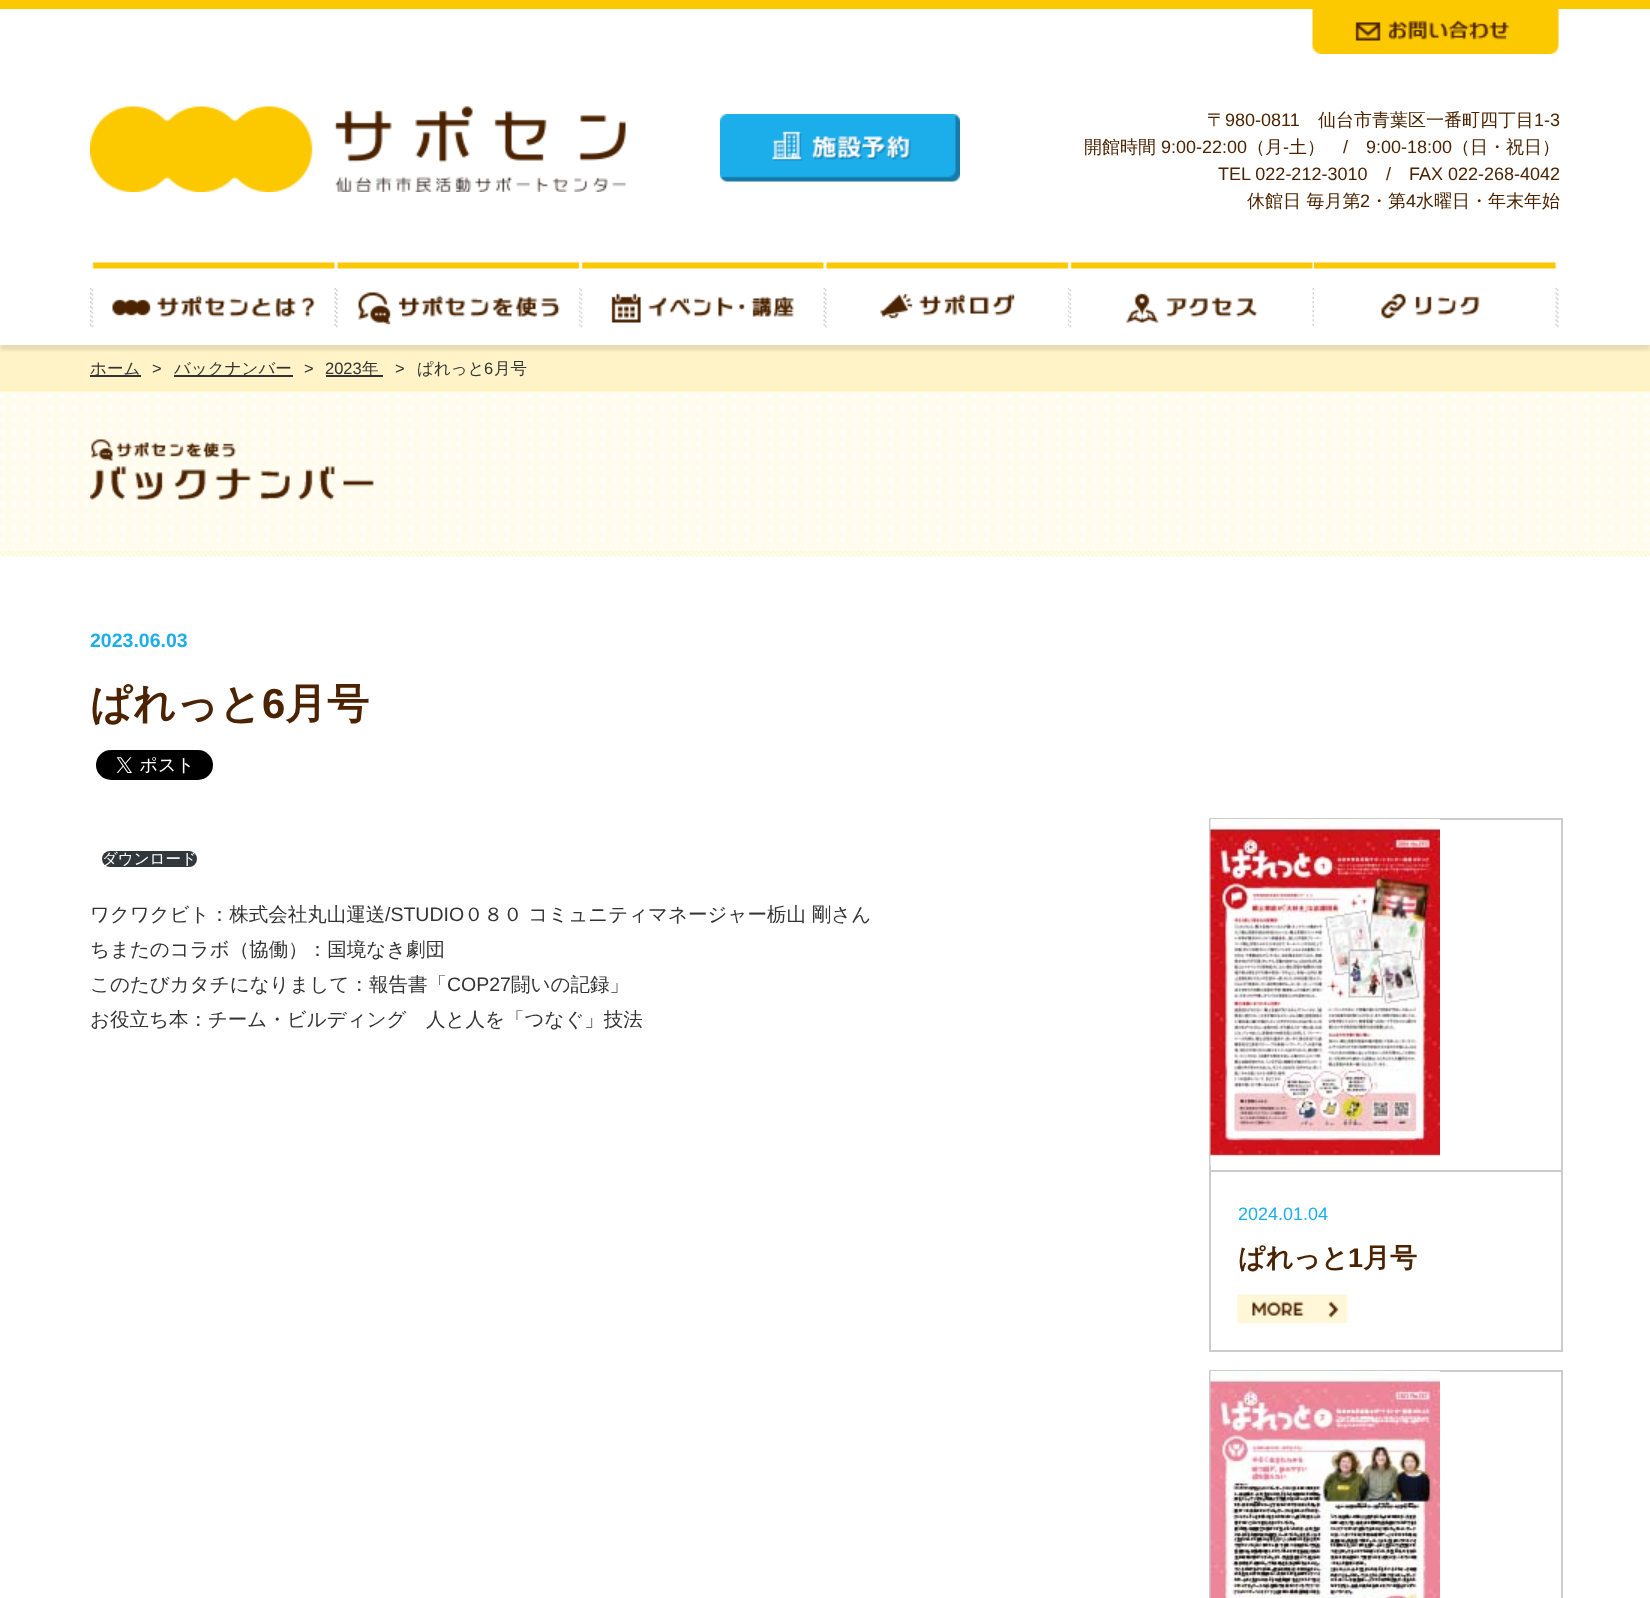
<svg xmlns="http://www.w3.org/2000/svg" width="1650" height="1598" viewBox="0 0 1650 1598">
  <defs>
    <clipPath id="clip1"><path d="M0 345h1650v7H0z"/></clipPath>
  </defs>
  <rect width="100%" height="100%" fill="#fff"/>
  <path d="M0 0h1650v9H0z" fill="#fcc800"/>
  <image x="1312" y="9" width="247" height="45" href="img/1.png"/>
  <image x="90" y="106" width="536" height="86" href="img/2.png"/>
  <image x="720" y="114" width="240" height="68" href="img/3.png"/>
  <path d="M0 345h1650v47H0z" fill="#fff3c7"/>
  <g clip-path="url(#clip1)">
    <path d="M0 267h1650v83H0z" fill="#0000001a" filter="blur(2px)"/>
  </g>
  <image x="90" y="262" width="246" height="66" href="img/4.png"/>
  <image x="336" y="262" width="245" height="66" href="img/5.png"/>
  <image x="580" y="262" width="245" height="66" href="img/6.png"/>
  <image x="825" y="262" width="245" height="66" href="img/7.png"/>
  <image x="1069" y="262" width="245" height="66" href="img/8.png"/>
  <image x="1314" y="262" width="245" height="66" href="img/9.png"/>
  <path d="M90 375h51v2H90z" fill="#333"/>
  <path d="M174 375h119v2H174z" fill="#333"/>
  <path d="M326 375h57v2H326z" fill="#333"/>
  <image x="0" y="550" width="1650" height="7" href="img/12.png"/>
  <path d="M0 387h1650v159H0z" fill="#ffff951a" filter="blur(2px)"/>
  <image x="0" y="391" width="1650" height="160" href="img/10.png"/>
  <image x="90" y="439" width="284" height="61" href="img/11.png"/>
  <image x="96" y="750" width="117" height="30" href="img/13.png"/>
  <rect x="102" y="851" width="95" height="16" rx="8" fill="#32373c"/>
  <path d="M1210 819h352v532H1210z" fill="none" stroke="#ccc" stroke-width="2"/>
  <path d="M1211 1170h351v2H1211z" fill="#ccc"/>
  <image x="1210" y="819" width="230" height="347" href="img/14.png"/>
  <image x="1237" y="1294" width="110" height="29" href="img/15.png"/>
  <path d="M1210 1371h352v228H1210z" fill="none" stroke="#ccc" stroke-width="2"/>
  <image x="1210" y="1371" width="230" height="227" href="img/16.png"/>
  <text x="1207" y="126" font-family="WenQuanYi Zen Hei" font-size="18" font-weight="500" fill="#4b2300">〒</text>
  <text x="1225" y="126" font-family="Liberation Sans" font-size="18" fill="#4b2300">980-0811</text>
  <text x="1318" y="126" font-family="WenQuanYi Zen Hei" font-size="18" font-weight="500" fill="#4b2300">仙台市青葉区一番町四丁目</text>
  <text x="1534" y="126" font-family="Liberation Sans" font-size="18" fill="#4b2300">1-3</text>
  <text x="1084" y="153" font-family="WenQuanYi Zen Hei" font-size="18" font-weight="500" fill="#4b2300">開館時間</text>
  <text x="1161" y="153" font-family="Liberation Sans" font-size="18" fill="#4b2300">9:00-22:00</text>
  <text x="1247" y="153" font-family="WenQuanYi Zen Hei" font-size="18" font-weight="500" fill="#4b2300">（月</text>
  <text x="1283" y="153" font-family="Liberation Sans" font-size="18" fill="#4b2300">-</text>
  <text x="1289" y="153" font-family="WenQuanYi Zen Hei" font-size="18" font-weight="500" fill="#4b2300">土）</text>
  <g font-family="Liberation Sans" font-size="18" fill="#4b2300">
    <text x="1343" y="153">/</text>
    <text x="1366" y="153">9:00-18:00</text>
  </g>
  <text x="1452" y="153" font-family="WenQuanYi Zen Hei" font-size="18" font-weight="500" fill="#4b2300">（日・祝日）</text>
  <g font-family="Liberation Sans" font-size="18" fill="#4b2300">
    <text x="1218" y="180">TEL 022-212-3010</text>
    <text x="1386" y="180">/</text>
    <text x="1409" y="180">FAX 022-268-4042</text>
  </g>
  <text x="1247" y="207" font-family="WenQuanYi Zen Hei" font-size="18" font-weight="500" fill="#4b2300">休館日 毎月第</text>
  <text x="1360" y="207" font-family="Liberation Sans" font-size="18" fill="#4b2300">2</text>
  <text x="1370" y="207" font-family="WenQuanYi Zen Hei" font-size="18" font-weight="500" fill="#4b2300">・第</text>
  <text x="1406" y="207" font-family="Liberation Sans" font-size="18" fill="#4b2300">4</text>
  <text x="1416" y="207" font-family="WenQuanYi Zen Hei" font-size="18" font-weight="500" fill="#4b2300">水曜日・年末年始</text>
  <text x="90" y="374" font-family="WenQuanYi Zen Hei" font-size="16.5" font-weight="500" fill="#333">ホーム</text>
  <text x="152" y="374" font-family="Liberation Sans" font-size="16.5" fill="#333">&gt;</text>
  <text x="174" y="374" font-family="WenQuanYi Zen Hei" font-size="16.5" font-weight="500" fill="#333">バックナンバー</text>
  <g font-family="Liberation Sans" font-size="16.5" fill="#333">
    <text x="304" y="374">&gt;</text>
    <text x="325" y="374">2023</text>
  </g>
  <text x="362" y="374" font-family="WenQuanYi Zen Hei" font-size="16.5" font-weight="500" fill="#333">年</text>
  <text x="395" y="374" font-family="Liberation Sans" font-size="16.5" fill="#333">&gt;</text>
  <text x="417" y="374" font-family="WenQuanYi Zen Hei" font-size="16.5" font-weight="500" fill="#333">ぱれっと</text>
  <text x="484" y="374" font-family="Liberation Sans" font-size="16.5" fill="#333">6</text>
  <text x="494" y="374" font-family="WenQuanYi Zen Hei" font-size="16.5" font-weight="500" fill="#333">月号</text>
  <text x="90" y="647" font-family="Liberation Sans" font-size="19.5" font-weight="bold" fill="#1dadeb">2023.06.03</text>
  <text x="90" y="718" font-family="WenQuanYi Zen Hei" font-size="42" font-weight="bold" fill="#4b2300">ぱれっと</text>
  <text x="262" y="718" font-family="Liberation Sans" font-size="42" font-weight="bold" fill="#4b2300">6</text>
  <text x="285" y="718" font-family="WenQuanYi Zen Hei" font-size="42" font-weight="bold" fill="#4b2300">月号</text>
  <text x="102" y="864" font-family="WenQuanYi Zen Hei" font-size="15.5" font-weight="500" fill="#fff">ダウンロード</text>
  <text x="90" y="921" font-family="WenQuanYi Zen Hei" font-size="19.5" font-weight="500" fill="#333">ワクワクビト：株式会社丸山運送</text>
  <text x="385" y="921" font-family="Liberation Sans" font-size="19.5" fill="#333">/STUDIO</text>
  <g font-family="WenQuanYi Zen Hei" font-size="19.5" font-weight="500" fill="#333">
    <text x="464" y="921">０８０ コミュニティマネージャー栃山 剛さん</text>
    <text x="90" y="956">ちまたのコラボ（協働）：国境なき劇団</text>
    <text x="90" y="991">このたびカタチになりまして：報告書「</text>
  </g>
  <text x="447" y="991" font-family="Liberation Sans" font-size="19.5" fill="#333">COP27</text>
  <g font-family="WenQuanYi Zen Hei" font-size="19.5" font-weight="500" fill="#333">
    <text x="511" y="991">闘いの記録」</text>
    <text x="90" y="1026">お役立ち本：チーム・ビルディング　人と人を「つなぐ」技法</text>
  </g>
  <text x="1238" y="1220" font-family="Liberation Sans" font-size="18" fill="#1dadeb">2024.01.04</text>
  <text x="1238" y="1267" font-family="WenQuanYi Zen Hei" font-size="27" font-weight="bold" fill="#4b2300">ぱれっと</text>
  <text x="1348" y="1267" font-family="Liberation Sans" font-size="27" font-weight="bold" fill="#4b2300">1</text>
  <text x="1363" y="1267" font-family="WenQuanYi Zen Hei" font-size="27" font-weight="bold" fill="#4b2300">月号</text>
</svg>
